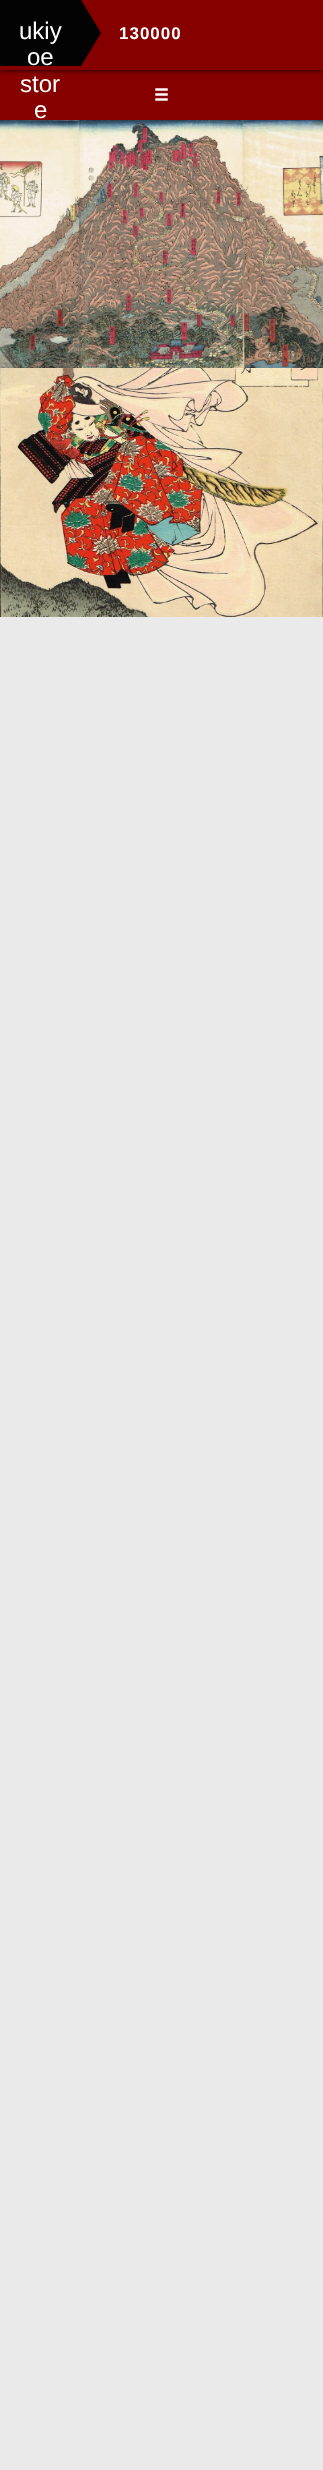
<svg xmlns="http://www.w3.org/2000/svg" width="323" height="2470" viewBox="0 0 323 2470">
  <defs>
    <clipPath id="clip1"><path d="M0 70h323v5H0z"/></clipPath>
  </defs>
  <rect width="100%" height="100%" fill="#eaeaea"/>
  <path d="M0 0h323v120H0z" fill="#870000"/>
  <g clip-path="url(#clip1)">
    <path d="M0 0h323v70H0z" fill="#000" filter="blur(2.5px)"/>
  </g>
  <path d="M0 0h81v66H0z" fill="#030303"/>
  <path d="M81 66V0L101 33Z" fill="#030303"/>
  <image x="155" y="88" width="13" height="13" href="img/1.png"/>
  <image x="0" y="120" width="323" height="248" href="img/2.png"/>
  <image x="0" y="368" width="323" height="249" href="img/3.png"/>
  <g font-family="Liberation Sans" font-size="24" fill="#fff">
    <text x="19" y="39">ukiy</text>
    <text x="27" y="65">oe</text>
    <text x="20" y="92">stor</text>
    <text x="34" y="118">e</text>
  </g>
  <text x="119" y="39" font-family="Liberation Sans" font-size="17" font-weight="bold" letter-spacing="1" fill="#fff">130000</text>
</svg>
